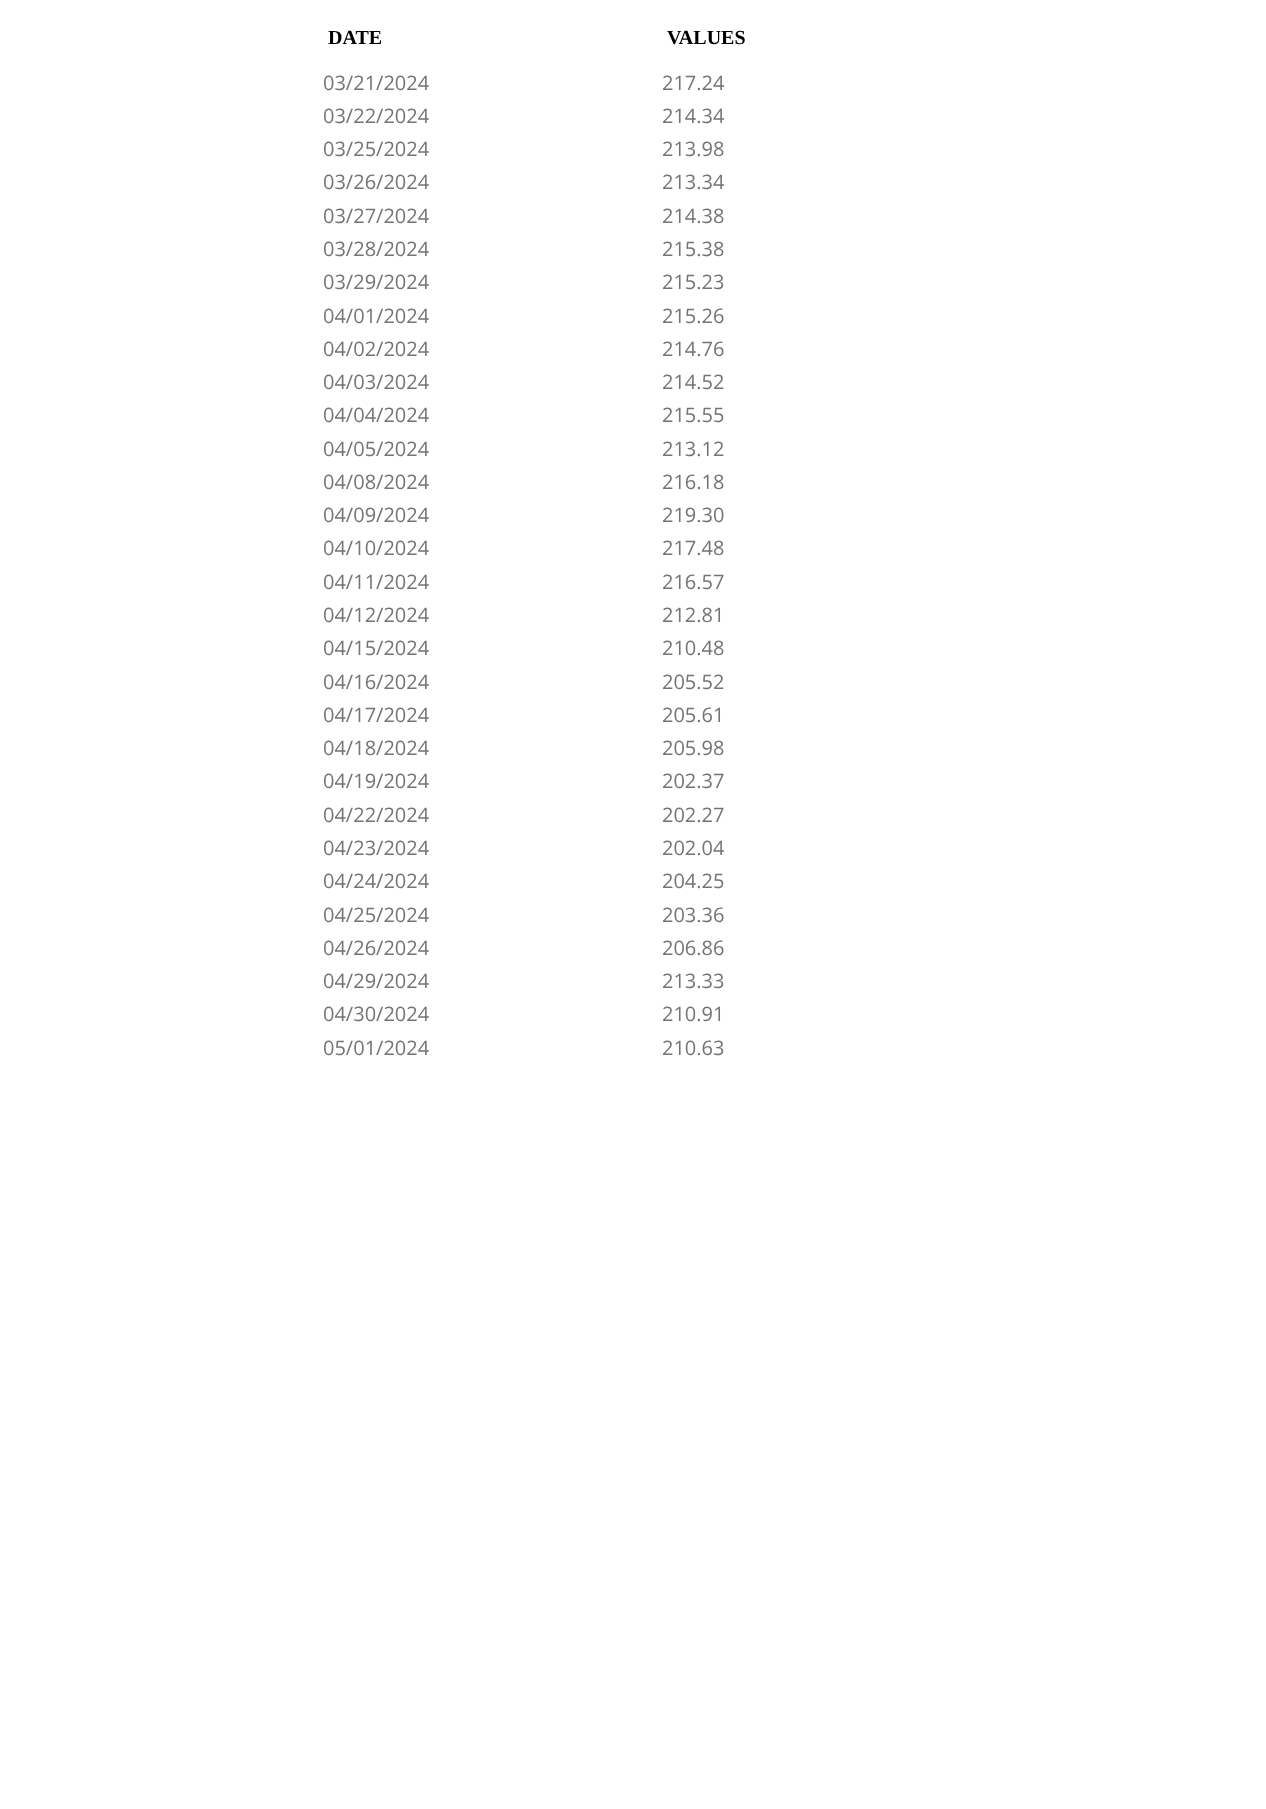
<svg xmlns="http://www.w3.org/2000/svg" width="1266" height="1809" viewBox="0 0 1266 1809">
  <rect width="100%" height="100%" fill="#fff"/>
  <g font-family="Liberation Serif" font-size="20" font-weight="bold" fill="#000">
    <text x="328" y="44">DATE</text>
    <text x="667" y="44">VALUES</text>
  </g>
  <g font-family="Open Sans" font-size="20" fill="#747474">
    <text x="323" y="90">03/21/2024</text>
    <text x="662" y="90">217.24</text>
    <text x="323" y="123">03/22/2024</text>
    <text x="662" y="123">214.34</text>
    <text x="323" y="156">03/25/2024</text>
    <text x="662" y="156">213.98</text>
    <text x="323" y="189">03/26/2024</text>
    <text x="662" y="189">213.34</text>
    <text x="323" y="223">03/27/2024</text>
    <text x="662" y="223">214.38</text>
    <text x="323" y="256">03/28/2024</text>
    <text x="662" y="256">215.38</text>
    <text x="323" y="289">03/29/2024</text>
    <text x="662" y="289">215.23</text>
    <text x="323" y="323">04/01/2024</text>
    <text x="662" y="323">215.26</text>
    <text x="323" y="356">04/02/2024</text>
    <text x="662" y="356">214.76</text>
    <text x="323" y="389">04/03/2024</text>
    <text x="662" y="389">214.52</text>
    <text x="323" y="422">04/04/2024</text>
    <text x="662" y="422">215.55</text>
    <text x="323" y="456">04/05/2024</text>
    <text x="662" y="456">213.12</text>
    <text x="323" y="489">04/08/2024</text>
    <text x="662" y="489">216.18</text>
    <text x="323" y="522">04/09/2024</text>
    <text x="662" y="522">219.30</text>
    <text x="323" y="555">04/10/2024</text>
    <text x="662" y="555">217.48</text>
    <text x="323" y="589">04/11/2024</text>
    <text x="662" y="589">216.57</text>
    <text x="323" y="622">04/12/2024</text>
    <text x="662" y="622">212.81</text>
    <text x="323" y="655">04/15/2024</text>
    <text x="662" y="655">210.48</text>
    <text x="323" y="689">04/16/2024</text>
    <text x="662" y="689">205.52</text>
    <text x="323" y="722">04/17/2024</text>
    <text x="662" y="722">205.61</text>
    <text x="323" y="755">04/18/2024</text>
    <text x="662" y="755">205.98</text>
    <text x="323" y="788">04/19/2024</text>
    <text x="662" y="788">202.37</text>
    <text x="323" y="822">04/22/2024</text>
    <text x="662" y="822">202.27</text>
    <text x="323" y="855">04/23/2024</text>
    <text x="662" y="855">202.04</text>
    <text x="323" y="888">04/24/2024</text>
    <text x="662" y="888">204.25</text>
    <text x="323" y="922">04/25/2024</text>
    <text x="662" y="922">203.36</text>
    <text x="323" y="955">04/26/2024</text>
    <text x="662" y="955">206.86</text>
    <text x="323" y="988">04/29/2024</text>
    <text x="662" y="988">213.33</text>
    <text x="323" y="1021">04/30/2024</text>
    <text x="662" y="1021">210.91</text>
    <text x="323" y="1055">05/01/2024</text>
    <text x="662" y="1055">210.63</text>
  </g>
</svg>
